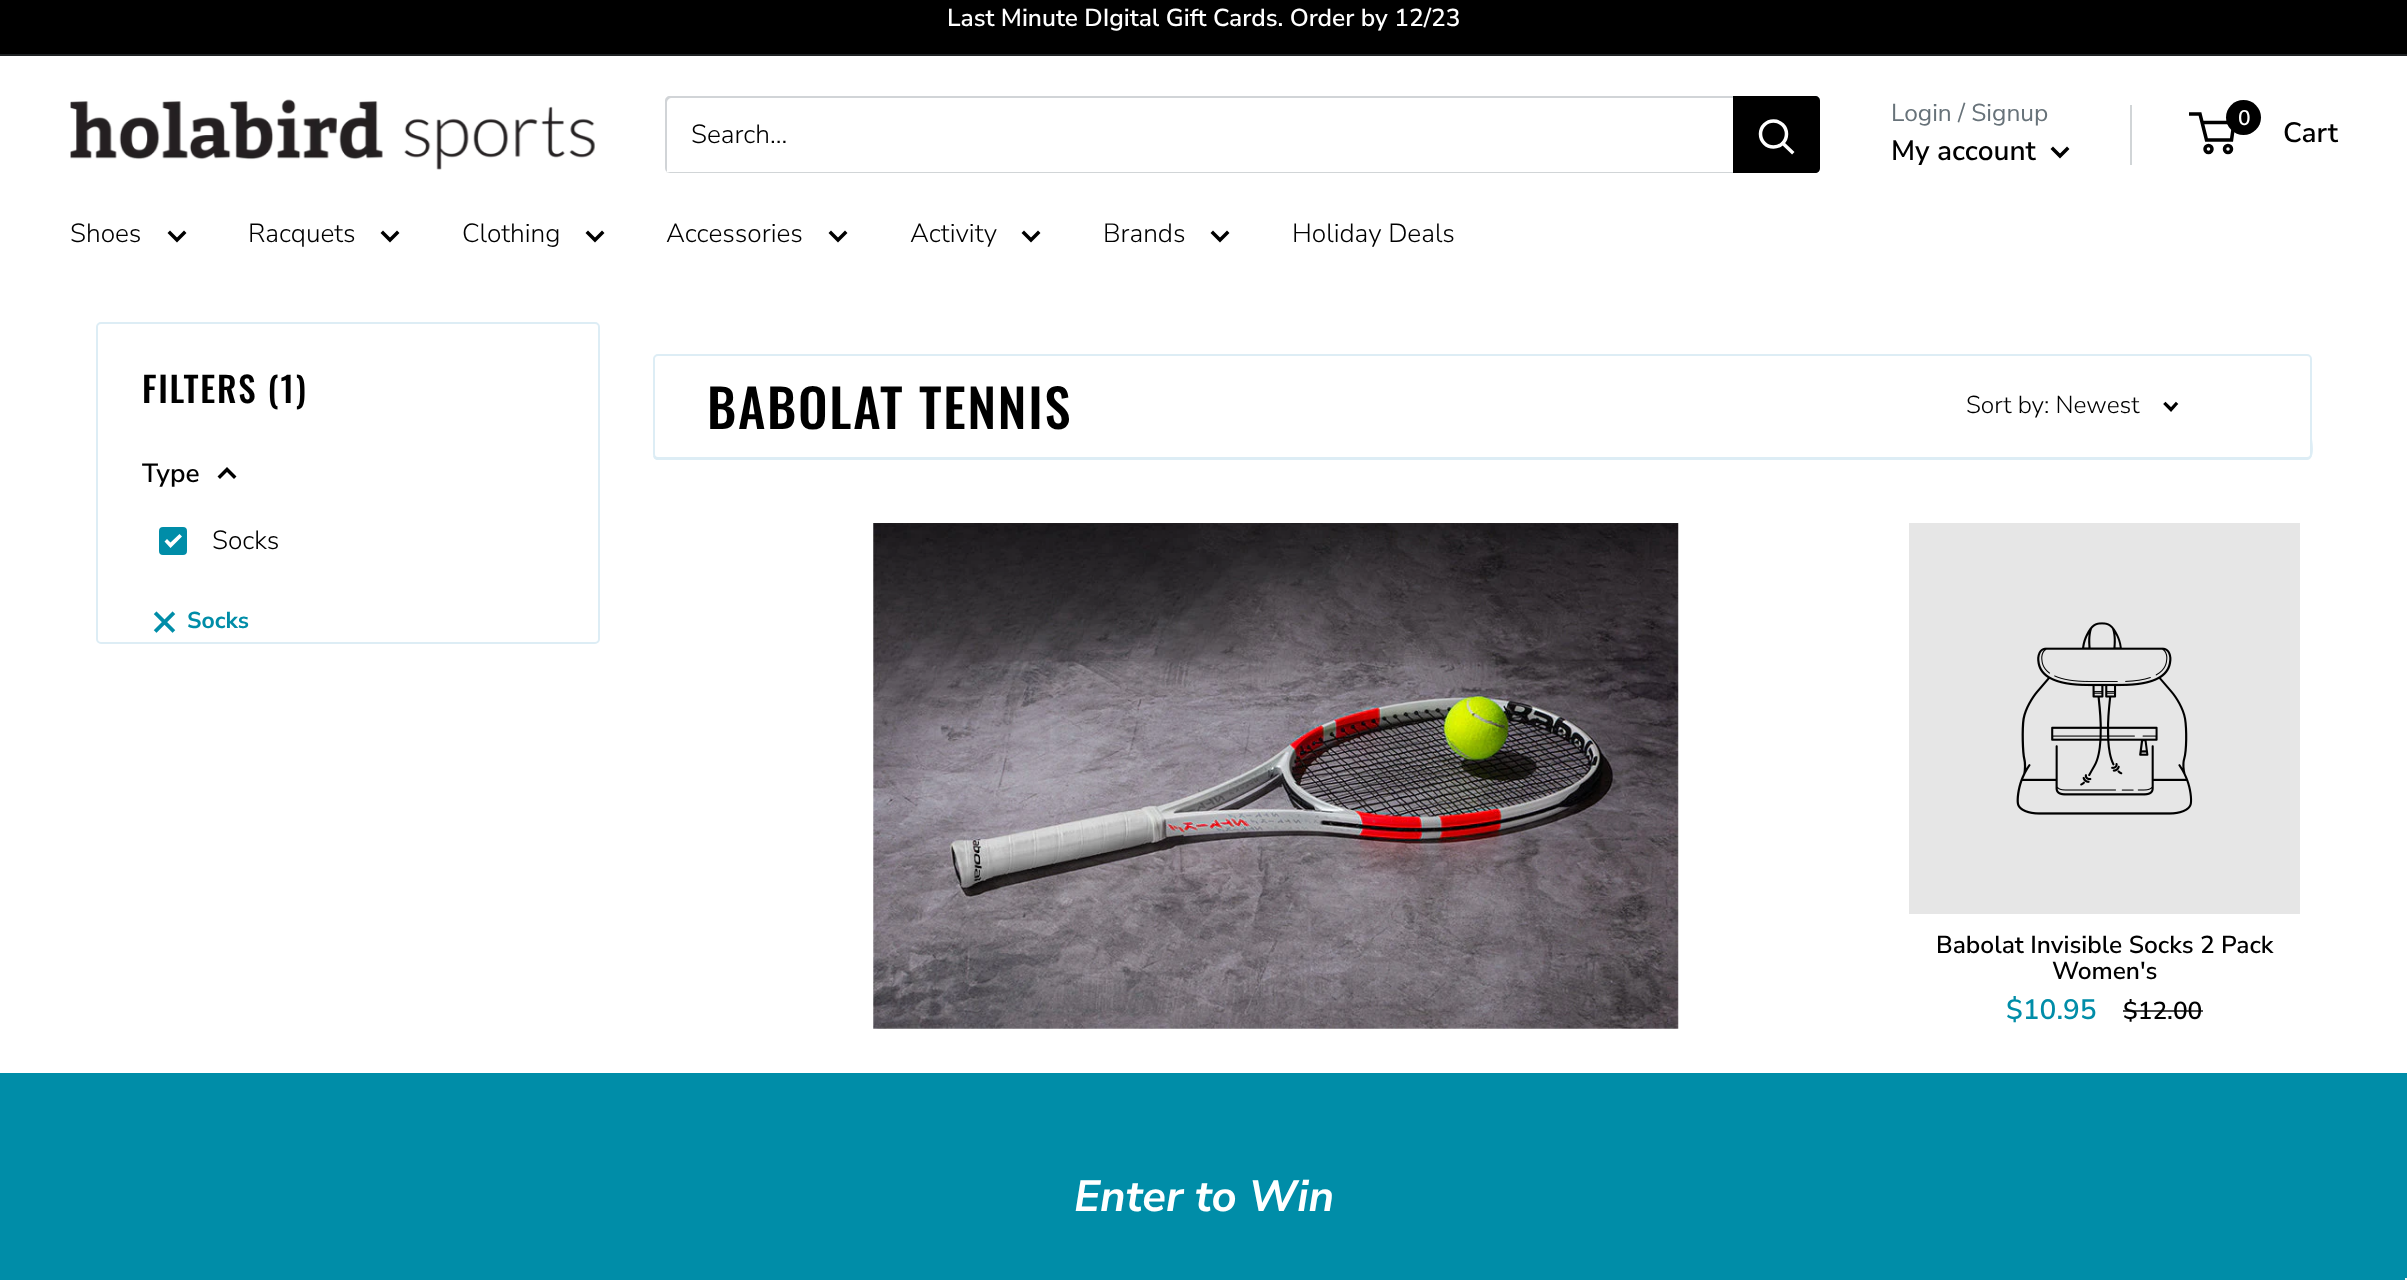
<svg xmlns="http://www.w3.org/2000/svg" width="2407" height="1280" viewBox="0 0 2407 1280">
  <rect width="100%" height="100%" fill="#fff"/>
  <path d="M0 0h2407v54H0z" fill="#000"/>
  <path d="M0 54h2407v2H0z" fill="#1f2224"/>
  <image x="70" y="99" width="525" height="71" href="img/1.png"/>
  <path d="M666 172C667 172 669 173 670 173H1815C1818 173 1820 171 1820 168V101C1820 99 1819 97 1817 96L1818 100V166C1818 169 1816 172 1813 172H668Z" fill="#d1d5d7"/>
  <path d="M672 98H1816L1820 99C1819 97 1817 96 1815 96H670C667 96 665 98 665 101V168C665 170 666 171 667 172V170V103C667 100 669 98 672 98Z" fill="#6772794d"/>
  <path d="M1733 96H1815C1818 96 1820 98 1820 101V168C1820 171 1818 173 1815 173H1733Z" fill="#000"/>
  <path d="M1792 152L1783 143.5" fill="none" stroke="#fff" stroke-width="3.5" stroke-linecap="square"/>
  <circle cx="1773.5" cy="134" r="13" fill="none" stroke="#fff" stroke-width="3.5"/>
  <path d="M2130 105h2v60H2130z" fill="#d1d5d7"/>
  <path d="M2067 149L2060 156L2053 149" fill="none" stroke="#000" stroke-width="3.5" stroke-linecap="square"/>
  <circle cx="2208.5" cy="149" r="3.5" fill="none" stroke="#000" stroke-width="3.5"/>
  <circle cx="2228" cy="149" r="3.5" fill="none" stroke="#000" stroke-width="3.5"/>
  <path d="M2202 122.5H2234L2231.5 140H2206.5L2200 114H2189" fill="none" stroke="#000" stroke-width="3.5"/>
  <circle cx="2243.5" cy="117.5" r="17.5" fill="#000"/>
  <path d="M184 233L177 240L170 233" fill="none" stroke="#000" stroke-width="3.5" stroke-linecap="square"/>
  <path d="M397 233L390 240L383 233" fill="none" stroke="#000" stroke-width="3.5" stroke-linecap="square"/>
  <path d="M602 233L595 240L588 233" fill="none" stroke="#000" stroke-width="3.5" stroke-linecap="square"/>
  <path d="M845 233L838 240L831 233" fill="none" stroke="#000" stroke-width="3.5" stroke-linecap="square"/>
  <path d="M1038 233L1031 240L1024 233" fill="none" stroke="#000" stroke-width="3.5" stroke-linecap="square"/>
  <path d="M1227 233L1220 240L1213 233" fill="none" stroke="#000" stroke-width="3.5" stroke-linecap="square"/>
  <rect x="97" y="323" width="502" height="320" rx="4" fill="none" stroke="#ddedf5" stroke-width="2"/>
  <path d="M220 476.5L227 469.5L234 476.5" fill="none" stroke="#000" stroke-width="3.5" stroke-linecap="square"/>
  <rect x="160" y="528" width="26" height="26" rx="3" fill="#008da8" stroke="#008da8" stroke-width="2"/>
  <path d="M170.5 548L164.5 541.5L167 539L170.5 542.5L179.5 534L182 536.5Z" fill="#fff"/>
  <image x="153" y="611" width="23" height="22" href="img/2.png"/>
  <path d="M653 455C653 458 655 460 658 460H2307C2316 460 2312 440 2312 439V358V453C2312 456 2309 458 2306 458H658C656 458 654 457 653 455Z" fill="#ddedf5"/>
  <rect x="654" y="355" width="1657" height="103" rx="4" fill="#fff" stroke="#ddedf5" stroke-width="2"/>
  <path d="M2176 404L2171 409.5L2165.5 404" fill="none" stroke="#000" stroke-width="3.3" stroke-linecap="square"/>
  <image x="873" y="523" width="806" height="506" href="img/3.png"/>
  <path d="M1909 523h391v391H1909z" fill="#e6e6e6"/>
  <image x="2016" y="622" width="177" height="193" href="img/4.png"/>
  <path d="M0 1073h2407v207H0z" fill="#008da8"/>
  <path d="M2405 1278h2v2H2405z" fill="#f5f5f5"/>
  <text x="947" y="26" font-family="Nunito Sans" font-size="24.5" font-weight="600" fill="#fff">Last Minute DIgital Gift Cards. Order by 12/23</text>
  <text x="691" y="143" font-family="Nunito Sans" font-size="26.25" font-weight="300" fill="#000">Search...</text>
  <text x="1891" y="121" font-family="Nunito Sans" font-size="24.5" fill="#677279">Login / Signup</text>
  <text x="1891" y="160" font-family="Nunito Sans" font-size="28" font-weight="600" fill="#000">My account</text>
  <text x="2238" y="125" font-family="Nunito Sans" font-size="21" font-weight="600" fill="#fff">0</text>
  <text x="2283" y="142" font-family="Nunito Sans" font-size="28" font-weight="600" fill="#000">Cart</text>
  <g font-family="Nunito Sans" font-size="26.25" font-weight="300" fill="#000">
    <text x="70" y="242">Shoes</text>
    <text x="248" y="242">Racquets</text>
    <text x="462" y="242">Clothing</text>
    <text x="666" y="242">Accessories</text>
    <text x="910" y="242">Activity</text>
    <text x="1103" y="242">Brands</text>
    <text x="1292" y="242">Holiday Deals</text>
  </g>
  <text x="142" y="403" font-family="Oswald" font-size="35" font-weight="500" letter-spacing="1.75" fill="#000">FILTERS (1)</text>
  <text x="142" y="482" font-family="Nunito Sans" font-size="26.25" font-weight="600" fill="#000">Type</text>
  <text x="212" y="549" font-family="Nunito Sans" font-size="26.25" font-weight="300" fill="#000">Socks</text>
  <text x="187" y="628" font-family="Nunito Sans" font-size="23" font-weight="bold" fill="#008da8">Socks</text>
  <text x="707" y="429" font-family="Oswald" font-size="52.5" font-weight="500" letter-spacing="1.75" fill="#000">BABOLAT TENNIS</text>
  <text x="1966" y="413" font-family="Nunito Sans" font-size="24.5" font-weight="300" fill="#000">Sort by: Newest</text>
  <g font-family="Nunito Sans" font-size="24.5" font-weight="600" fill="#000">
    <text x="1936" y="953">Babolat Invisible Socks 2 Pack</text>
    <text x="2052" y="979">Women's</text>
  </g>
  <text x="2006" y="1019" font-family="Nunito Sans" font-size="28" font-weight="600" fill="#008da8">$10.95</text>
  <text x="2123" y="1019" font-family="Nunito Sans" font-size="24.5" font-weight="600" fill="#000">$12.00</text>
  <path d="M2123 1010h80v2H2123z" fill="#000000b3"/>
  <text x="1074" y="1211" font-family="Nunito Sans" font-size="43.75" font-weight="bold" font-style="italic" fill="#fff">Enter to Win</text>
</svg>
